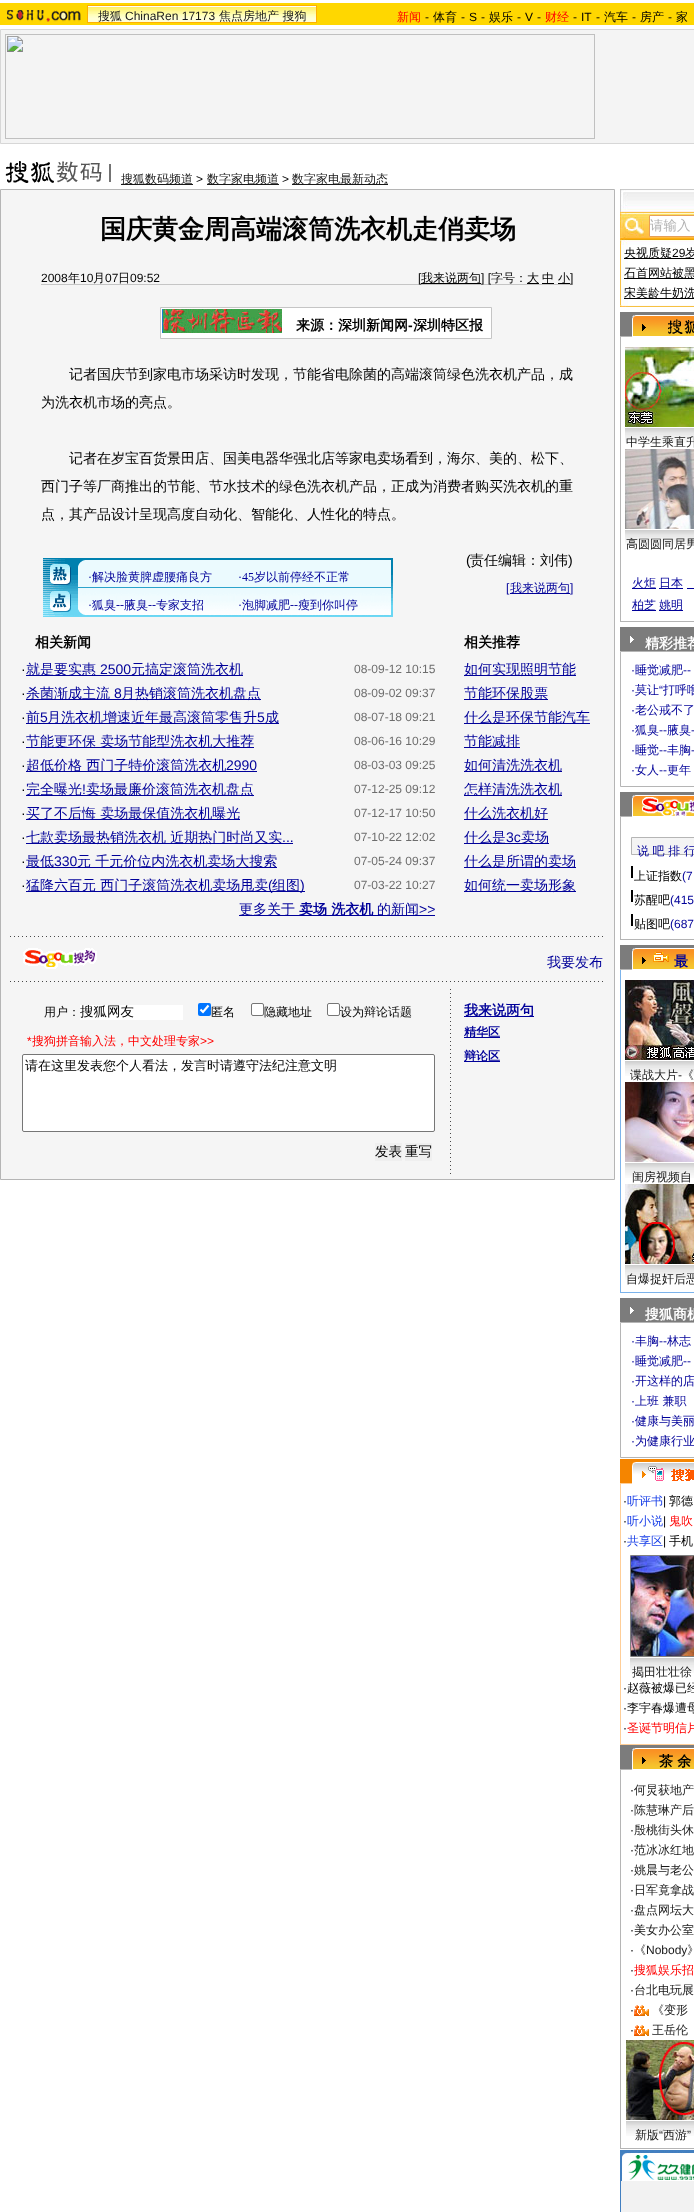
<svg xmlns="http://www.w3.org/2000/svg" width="694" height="2212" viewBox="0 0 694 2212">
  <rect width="100%" height="100%" fill="#fff"/>
  <path d="M0 3h694v22H0z" fill="#ffd700"/>
  <image x="7" y="10" width="74" height="12" href="img/1.png"/>
  <image x="87" y="5" width="230" height="18" href="img/2.png"/>
  <path d="M0.5 29.5h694v114H0.5z" fill="#f4f4f4" stroke="#d7d7d7"/>
  <image x="5" y="34" width="590" height="105" href="img/3.png"/>
  <image x="5" y="161" width="106" height="22" href="img/4.png"/>
  <path d="M121 184h72v1H121z" fill="#191919"/>
  <path d="M207 184h72v1H207z" fill="#191919"/>
  <path d="M292 184h96v1H292z" fill="#191919"/>
  <path d="M0.5 189.5h614v990H0.5z" fill="#f5f5f5" stroke="#b5b5b5"/>
  <path d="M41 284h532v1H41z" fill="#c5c5c5"/>
  <path d="M421 283h60v1H421z" fill="#000"/>
  <path d="M527 283h12v1H527z" fill="#000"/>
  <path d="M542 283h12v1H542z" fill="#000"/>
  <path d="M558 283h12v1H558z" fill="#000"/>
  <path d="M160.5 307.5h331v31H160.5z" fill="#fff" stroke="#c5c5c5"/>
  <image x="162" y="309" width="120" height="24" href="img/5.png"/>
  <image x="43" y="558" width="350" height="59" href="img/6.png"/>
  <path d="M510 593h60v1H510z" fill="#009"/>
  <path d="M26 675h217v1H26z" fill="#009"/>
  <path d="M26 699h235v1H26z" fill="#009"/>
  <path d="M26 723h253v1H26z" fill="#009"/>
  <path d="M26 747h228v1H26z" fill="#009"/>
  <path d="M26 771h231v1H26z" fill="#009"/>
  <path d="M26 795h228v1H26z" fill="#009"/>
  <path d="M26 819h214v1H26z" fill="#009"/>
  <path d="M26 843h267v1H26z" fill="#009"/>
  <path d="M26 867h251v1H26z" fill="#009"/>
  <path d="M26 891h279v1H26z" fill="#009"/>
  <path d="M239 915h196v1H239z" fill="#009"/>
  <path d="M464 675h112v1H464z" fill="#009"/>
  <path d="M464 699h84v1H464z" fill="#009"/>
  <path d="M464 723h126v1H464z" fill="#009"/>
  <path d="M464 747h56v1H464z" fill="#009"/>
  <path d="M464 771h98v1H464z" fill="#009"/>
  <path d="M464 795h98v1H464z" fill="#009"/>
  <path d="M464 819h84v1H464z" fill="#009"/>
  <path d="M464 843h85v1H464z" fill="#009"/>
  <path d="M464 867h112v1H464z" fill="#009"/>
  <path d="M464 891h112v1H464z" fill="#009"/>
  <image x="10" y="936" width="593" height="1" href="img/7.png"/>
  <image x="23" y="948" width="74" height="21" href="img/8.png"/>
  <image x="10" y="981" width="593" height="1" href="img/7.png"/>
  <image x="450" y="989" width="1" height="185" href="img/9.png"/>
  <path d="M80 1005h103v15H80z" fill="#fff"/>
  <rect x="198" y="1003" width="13" height="13" rx="2" fill="#0075ff"/>
  <path d="M200.5 1009.5L203 1012L208.5 1005.5" fill="none" stroke="#fff" stroke-width="2.1"/>
  <rect x="251.5" y="1003.5" width="12" height="12" rx="1.5" fill="#fff" stroke="#767676"/>
  <rect x="327.5" y="1003.5" width="12" height="12" rx="1.5" fill="#fff" stroke="#767676"/>
  <rect x="22.5" y="1054.5" width="412" height="77" rx="1.5" fill="#fff" stroke="#767676"/>
  <path d="M375 1143h27v18H375z" fill="#efefef"/>
  <path d="M405 1143h27v18H405z" fill="#efefef"/>
  <path d="M464 1016h70v1H464z" fill="#009"/>
  <path d="M464 1037h36v1H464z" fill="#009"/>
  <path d="M464 1061h36v1H464z" fill="#009"/>
  <image x="620" y="189" width="74" height="118" href="img/10.png"/>
  <path d="M649.5 215.5h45v21H649.5z" fill="#fff" stroke="#e89f57"/>
  <path d="M624 258h70v1H624z" fill="#000"/>
  <path d="M624 278h70v1H624z" fill="#000"/>
  <path d="M624 298h70v1H624z" fill="#000"/>
  <image x="620" y="312" width="74" height="25" href="img/11.png"/>
  <image x="668" y="319" width="26" height="15" href="img/12.png"/>
  <path d="M620 621h74v1H620z" fill="#b5b5b5"/>
  <path d="M620 337h1v285H620z" fill="#b5b5b5"/>
  <image x="625" y="347" width="69" height="80" href="img/13.png"/>
  <image x="625" y="428" width="69" height="15" href="img/14.png"/>
  <image x="625" y="449" width="69" height="80" href="img/15.png"/>
  <image x="625" y="530" width="69" height="15" href="img/14.png"/>
  <path d="M632 588h24v1H632z" fill="#009"/>
  <path d="M659 588h24v1H659z" fill="#009"/>
  <path d="M687 588h7v1H687z" fill="#009"/>
  <path d="M632 610h24v1H632z" fill="#009"/>
  <path d="M659 610h24v1H659z" fill="#009"/>
  <path d="M620 627h74v24H620z" fill="#7c7c7c"/>
  <image x="630" y="636" width="4" height="7" href="img/16.png"/>
  <path d="M620.5 651.5h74v135H620.5z" fill="none" stroke="#b5b5b5"/>
  <image x="620" y="792" width="74" height="25" href="img/11.png"/>
  <image x="642" y="797" width="52" height="19" href="img/17.png"/>
  <path d="M620 939h74v1H620z" fill="#b5b5b5"/>
  <path d="M620 817h1v123H620z" fill="#b5b5b5"/>
  <path d="M631.5 837.5h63v17H631.5z" fill="#f4f4f4" stroke="#b5b5b5"/>
  <path d="M631 866h2v12H631z" fill="#000"/>
  <path d="M631 890h2v12H631z" fill="#000"/>
  <path d="M631 914h2v12H631z" fill="#000"/>
  <image x="620" y="945" width="74" height="25" href="img/11.png"/>
  <image x="653" y="952" width="16" height="10" href="img/18.png"/>
  <path d="M620 1292h74v1H620z" fill="#7bb3eb"/>
  <path d="M620 970h1v323H620z" fill="#7bb3eb"/>
  <image x="625" y="980" width="69" height="80" href="img/19.png"/>
  <image x="625" y="1061" width="69" height="15" href="img/14.png"/>
  <image x="625" y="1082" width="69" height="80" href="img/20.png"/>
  <image x="625" y="1163" width="69" height="15" href="img/14.png"/>
  <image x="625" y="1184" width="69" height="80" href="img/21.png"/>
  <image x="625" y="1265" width="69" height="15" href="img/14.png"/>
  <path d="M620 1298h74v24H620z" fill="#7c7c7c"/>
  <image x="630" y="1307" width="4" height="7" href="img/16.png"/>
  <path d="M620.5 1322.5h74v135H620.5z" fill="none" stroke="#b5b5b5"/>
  <image x="620" y="1459" width="74" height="25" href="img/22.png"/>
  <path d="M620 1744h74v1H620z" fill="#ffce97"/>
  <path d="M620 1484h1v261H620z" fill="#ffce97"/>
  <path d="M630.5 1555.5h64v101H630.5z" fill="none" stroke="#808080"/>
  <image x="631" y="1556" width="63" height="100" href="img/23.png"/>
  <image x="630" y="1658" width="64" height="15" href="img/24.png"/>
  <image x="620" y="1745" width="74" height="25" href="img/11.png"/>
  <path d="M620 2148h74v1H620z" fill="#b5b5b5"/>
  <path d="M620 1770h1v379H620z" fill="#b5b5b5"/>
  <image x="634" y="2005" width="15" height="11" href="img/25.png"/>
  <image x="634" y="2025" width="15" height="11" href="img/25.png"/>
  <image x="626" y="2040" width="68" height="80" href="img/26.png"/>
  <image x="626" y="2121" width="68" height="15" href="img/27.png"/>
  <image x="620" y="2150" width="74" height="62" href="img/28.png"/>
  <text x="98" y="20" font-family="WenQuanYi Zen Hei" font-size="12" font-weight="500" fill="#191919">搜狐</text>
  <text x="125" y="20" font-family="Liberation Sans" font-size="12" fill="#191919">ChinaRen 17173</text>
  <text x="219" y="20" font-family="WenQuanYi Zen Hei" font-size="12" font-weight="500" fill="#191919">焦点房地产 搜狗</text>
  <text x="397" y="21" font-family="WenQuanYi Zen Hei" font-size="12" font-weight="500" fill="#f00">新闻</text>
  <text x="425" y="21" font-family="Liberation Sans" font-size="12" fill="#000">-</text>
  <text x="433" y="21" font-family="WenQuanYi Zen Hei" font-size="12" font-weight="500" fill="#000">体育</text>
  <g font-family="Liberation Sans" font-size="12" fill="#000">
    <text x="461" y="21">-</text>
    <text x="469" y="21">S</text>
    <text x="481" y="21">-</text>
  </g>
  <text x="489" y="21" font-family="WenQuanYi Zen Hei" font-size="12" font-weight="500" fill="#000">娱乐</text>
  <g font-family="Liberation Sans" font-size="12" fill="#000">
    <text x="517" y="21">-</text>
    <text x="525" y="21">V</text>
    <text x="537" y="21">-</text>
  </g>
  <text x="545" y="21" font-family="WenQuanYi Zen Hei" font-size="12" font-weight="500" fill="#f00">财经</text>
  <g font-family="Liberation Sans" font-size="12" fill="#000">
    <text x="573" y="21">-</text>
    <text x="581" y="21">IT</text>
    <text x="596" y="21">-</text>
  </g>
  <text x="604" y="21" font-family="WenQuanYi Zen Hei" font-size="12" font-weight="500" fill="#000">汽车</text>
  <text x="632" y="21" font-family="Liberation Sans" font-size="12" fill="#000">-</text>
  <text x="640" y="21" font-family="WenQuanYi Zen Hei" font-size="12" font-weight="500" fill="#000">房产</text>
  <text x="668" y="21" font-family="Liberation Sans" font-size="12" fill="#000">-</text>
  <text x="676" y="21" font-family="WenQuanYi Zen Hei" font-size="12" font-weight="500" fill="#000">家</text>
  <text x="121" y="183" font-family="WenQuanYi Zen Hei" font-size="12" font-weight="500" fill="#191919">搜狐数码频道</text>
  <text x="196" y="183" font-family="Liberation Sans" font-size="12" fill="#000">&gt;</text>
  <text x="207" y="183" font-family="WenQuanYi Zen Hei" font-size="12" font-weight="500" fill="#191919">数字家电频道</text>
  <text x="282" y="183" font-family="Liberation Sans" font-size="12" fill="#000">&gt;</text>
  <text x="292" y="183" font-family="WenQuanYi Zen Hei" font-size="12" font-weight="500" fill="#191919">数字家电最新动态</text>
  <text x="100" y="238" font-family="WenQuanYi Zen Hei" font-size="26" font-weight="bold" fill="#000">国庆黄金周高端滚筒洗衣机走俏卖场</text>
  <text x="41" y="282" font-family="Liberation Sans" font-size="12" fill="#000">2008</text>
  <text x="68" y="282" font-family="WenQuanYi Zen Hei" font-size="12" font-weight="500" fill="#000">年</text>
  <text x="80" y="282" font-family="Liberation Sans" font-size="12" fill="#000">10</text>
  <text x="93" y="282" font-family="WenQuanYi Zen Hei" font-size="12" font-weight="500" fill="#000">月</text>
  <text x="105" y="282" font-family="Liberation Sans" font-size="12" fill="#000">07</text>
  <text x="118" y="282" font-family="WenQuanYi Zen Hei" font-size="12" font-weight="500" fill="#000">日</text>
  <g font-family="Liberation Sans" font-size="12" fill="#000">
    <text x="130" y="282">09:52</text>
    <text x="418" y="282">[</text>
  </g>
  <text x="421" y="282" font-family="WenQuanYi Zen Hei" font-size="12" font-weight="500" fill="#000">我来说两句</text>
  <text x="481" y="282" font-family="Liberation Sans" font-size="12" fill="#000">] [</text>
  <g font-family="WenQuanYi Zen Hei" font-size="12" font-weight="500" fill="#000">
    <text x="491" y="282">字号：</text>
    <text x="527" y="282">大</text>
    <text x="542" y="282">中</text>
    <text x="558" y="282">小</text>
  </g>
  <text x="570" y="282" font-family="Liberation Sans" font-size="12" fill="#000">]</text>
  <text x="296" y="330" font-family="WenQuanYi Zen Hei" font-size="14" font-weight="bold" fill="#000">来源：深圳新闻网</text>
  <text x="408" y="330" font-family="Liberation Sans" font-size="14" font-weight="bold" fill="#000">-</text>
  <text x="413" y="330" font-family="WenQuanYi Zen Hei" font-size="14" font-weight="bold" fill="#000">深圳特区报</text>
  <g font-family="WenQuanYi Zen Hei" font-size="14" font-weight="500" fill="#000">
    <text x="69" y="379">记者国庆节到家电市场采访时发现，节能省电除菌的高端滚筒绿色洗衣机产品，成</text>
    <text x="41" y="407">为洗衣机市场的亮点。</text>
    <text x="69" y="463">记者在岁宝百货景田店、国美电器华强北店等家电卖场看到，海尔、美的、松下、</text>
    <text x="41" y="491">西门子等厂商推出的节能、节水技术的绿色洗衣机产品，正成为消费者购买洗衣机的重</text>
    <text x="41" y="519">点，其产品设计呈现高度自动化、智能化、人性化的特点。</text>
  </g>
  <text x="466" y="565" font-family="Liberation Sans" font-size="14" fill="#000">(</text>
  <text x="470" y="565" font-family="WenQuanYi Zen Hei" font-size="14" font-weight="500" fill="#000">责任编辑：刘伟</text>
  <text x="568" y="565" font-family="Liberation Sans" font-size="14" fill="#000">)</text>
  <text x="506" y="592" font-family="Liberation Sans" font-size="12" fill="#009">[</text>
  <text x="510" y="592" font-family="WenQuanYi Zen Hei" font-size="12" font-weight="500" fill="#009">我来说两句</text>
  <text x="570" y="592" font-family="Liberation Sans" font-size="12" fill="#009">]</text>
  <text x="35" y="647" font-family="WenQuanYi Zen Hei" font-size="14" font-weight="bold" fill="#000">相关新闻</text>
  <text x="21" y="674" font-family="Liberation Sans" font-size="14" fill="#000">·</text>
  <text x="26" y="674" font-family="WenQuanYi Zen Hei" font-size="14" font-weight="500" fill="#009">就是要实惠</text>
  <text x="100" y="674" font-family="Liberation Sans" font-size="14" fill="#009">2500</text>
  <text x="131" y="674" font-family="WenQuanYi Zen Hei" font-size="14" font-weight="500" fill="#009">元搞定滚筒洗衣机</text>
  <text x="354" y="673" font-family="Liberation Sans" font-size="12" fill="#6d6d6d">08-09-12 10:15</text>
  <text x="21" y="698" font-family="Liberation Sans" font-size="14" fill="#000">·</text>
  <text x="26" y="698" font-family="WenQuanYi Zen Hei" font-size="14" font-weight="500" fill="#009">杀菌渐成主流</text>
  <text x="114" y="698" font-family="Liberation Sans" font-size="14" fill="#009">8</text>
  <text x="121" y="698" font-family="WenQuanYi Zen Hei" font-size="14" font-weight="500" fill="#009">月热销滚筒洗衣机盘点</text>
  <text x="354" y="697" font-family="Liberation Sans" font-size="12" fill="#6d6d6d">08-09-02 09:37</text>
  <text x="21" y="722" font-family="Liberation Sans" font-size="14" fill="#000">·</text>
  <text x="26" y="722" font-family="WenQuanYi Zen Hei" font-size="14" font-weight="500" fill="#009">前</text>
  <text x="40" y="722" font-family="Liberation Sans" font-size="14" fill="#009">5</text>
  <text x="47" y="722" font-family="WenQuanYi Zen Hei" font-size="14" font-weight="500" fill="#009">月洗衣机增速近年最高滚筒零售升</text>
  <text x="257" y="722" font-family="Liberation Sans" font-size="14" fill="#009">5</text>
  <text x="265" y="722" font-family="WenQuanYi Zen Hei" font-size="14" font-weight="500" fill="#009">成</text>
  <text x="354" y="721" font-family="Liberation Sans" font-size="12" fill="#6d6d6d">08-07-18 09:21</text>
  <text x="21" y="746" font-family="Liberation Sans" font-size="14" fill="#000">·</text>
  <text x="26" y="746" font-family="WenQuanYi Zen Hei" font-size="14" font-weight="500" fill="#009">节能更环保 卖场节能型洗衣机大推荐</text>
  <text x="354" y="745" font-family="Liberation Sans" font-size="12" fill="#6d6d6d">08-06-16 10:29</text>
  <text x="21" y="770" font-family="Liberation Sans" font-size="14" fill="#000">·</text>
  <text x="26" y="770" font-family="WenQuanYi Zen Hei" font-size="14" font-weight="500" fill="#009">超低价格 西门子特价滚筒洗衣机</text>
  <text x="226" y="770" font-family="Liberation Sans" font-size="14" fill="#009">2990</text>
  <text x="354" y="769" font-family="Liberation Sans" font-size="12" fill="#6d6d6d">08-03-03 09:25</text>
  <text x="21" y="794" font-family="Liberation Sans" font-size="14" fill="#000">·</text>
  <text x="26" y="794" font-family="WenQuanYi Zen Hei" font-size="14" font-weight="500" fill="#009">完全曝光</text>
  <text x="82" y="794" font-family="Liberation Sans" font-size="14" fill="#009">!</text>
  <text x="86" y="794" font-family="WenQuanYi Zen Hei" font-size="14" font-weight="500" fill="#009">卖场最廉价滚筒洗衣机盘点</text>
  <text x="354" y="793" font-family="Liberation Sans" font-size="12" fill="#6d6d6d">07-12-25 09:12</text>
  <text x="21" y="818" font-family="Liberation Sans" font-size="14" fill="#000">·</text>
  <text x="26" y="818" font-family="WenQuanYi Zen Hei" font-size="14" font-weight="500" fill="#009">买了不后悔 卖场最保值洗衣机曝光</text>
  <text x="354" y="817" font-family="Liberation Sans" font-size="12" fill="#6d6d6d">07-12-17 10:50</text>
  <text x="21" y="842" font-family="Liberation Sans" font-size="14" fill="#000">·</text>
  <text x="26" y="842" font-family="WenQuanYi Zen Hei" font-size="14" font-weight="500" fill="#009">七款卖场最热销洗衣机 近期热门时尚又实</text>
  <text x="354" y="841" font-family="Liberation Sans" font-size="12" fill="#6d6d6d">07-10-22 12:02</text>
  <text x="282" y="842" font-family="Liberation Sans" font-size="14" fill="#009">...</text>
  <text x="21" y="866" font-family="Liberation Sans" font-size="14" fill="#000">·</text>
  <text x="26" y="866" font-family="WenQuanYi Zen Hei" font-size="14" font-weight="500" fill="#009">最低</text>
  <text x="54" y="866" font-family="Liberation Sans" font-size="14" fill="#009">330</text>
  <text x="77" y="866" font-family="WenQuanYi Zen Hei" font-size="14" font-weight="500" fill="#009">元 千元价位内洗衣机卖场大搜索</text>
  <text x="354" y="865" font-family="Liberation Sans" font-size="12" fill="#6d6d6d">07-05-24 09:37</text>
  <text x="21" y="890" font-family="Liberation Sans" font-size="14" fill="#000">·</text>
  <text x="26" y="890" font-family="WenQuanYi Zen Hei" font-size="14" font-weight="500" fill="#009">猛降六百元 西门子滚筒洗衣机卖场甩卖</text>
  <text x="268" y="890" font-family="Liberation Sans" font-size="14" fill="#009">(</text>
  <text x="272" y="890" font-family="WenQuanYi Zen Hei" font-size="14" font-weight="500" fill="#009">组图</text>
  <text x="300" y="890" font-family="Liberation Sans" font-size="14" fill="#009">)</text>
  <text x="354" y="889" font-family="Liberation Sans" font-size="12" fill="#6d6d6d">07-03-22 10:27</text>
  <text x="239" y="914" font-family="WenQuanYi Zen Hei" font-size="14" font-weight="500" fill="#009">更多关于</text>
  <text x="299" y="914" font-family="WenQuanYi Zen Hei" font-size="14" font-weight="bold" fill="#009">卖场 洗衣机</text>
  <text x="377" y="914" font-family="WenQuanYi Zen Hei" font-size="14" font-weight="500" fill="#009">的新闻</text>
  <text x="419" y="914" font-family="Liberation Sans" font-size="14" fill="#009">&gt;&gt;</text>
  <text x="464" y="647" font-family="WenQuanYi Zen Hei" font-size="14" font-weight="bold" fill="#000">相关推荐</text>
  <g font-family="WenQuanYi Zen Hei" font-size="14" font-weight="500" fill="#009">
    <text x="464" y="674">如何实现照明节能</text>
    <text x="464" y="698">节能环保股票</text>
    <text x="464" y="722">什么是环保节能汽车</text>
    <text x="464" y="746">节能减排</text>
    <text x="464" y="770">如何清洗洗衣机</text>
    <text x="464" y="794">怎样清洗洗衣机</text>
    <text x="464" y="818">什么洗衣机好</text>
    <text x="464" y="842">什么是</text>
  </g>
  <text x="506" y="842" font-family="Liberation Sans" font-size="14" fill="#009">3c</text>
  <g font-family="WenQuanYi Zen Hei" font-size="14" font-weight="500" fill="#009">
    <text x="521" y="842">卖场</text>
    <text x="464" y="866">什么是所谓的卖场</text>
    <text x="464" y="890">如何统一卖场形象</text>
    <text x="547" y="967">我要发布</text>
  </g>
  <text x="44" y="1016" font-family="WenQuanYi Zen Hei" font-size="12" font-weight="500" fill="#000">用户：</text>
  <text x="80" y="1016" font-family="WenQuanYi Zen Hei" font-size="13.5" font-weight="500" fill="#000">搜狐网友</text>
  <g font-family="WenQuanYi Zen Hei" font-size="12" font-weight="500" fill="#000">
    <text x="211" y="1016">匿名</text>
    <text x="264" y="1016">隐藏地址</text>
    <text x="340" y="1016">设为辩论话题</text>
  </g>
  <text x="27" y="1045" font-family="Liberation Sans" font-size="12" fill="#f00">*</text>
  <text x="32" y="1045" font-family="WenQuanYi Zen Hei" font-size="12" font-weight="500" fill="#f00">搜狗拼音输入法，中文处理专家</text>
  <text x="200" y="1045" font-family="Liberation Sans" font-size="12" fill="#f00">&gt;&gt;</text>
  <text x="25" y="1070" font-family="WenQuanYi Zen Hei" font-size="13" font-weight="500" fill="#000">请在这里发表您个人看法，发言时请遵守法纪注意文明</text>
  <g font-family="WenQuanYi Zen Hei" font-size="13.5" font-weight="500" fill="#000">
    <text x="375" y="1156">发表</text>
    <text x="405" y="1156">重写</text>
  </g>
  <text x="464" y="1015" font-family="WenQuanYi Zen Hei" font-size="14" font-weight="bold" fill="#009">我来说两句</text>
  <g font-family="WenQuanYi Zen Hei" font-size="12" font-weight="bold" fill="#009">
    <text x="464" y="1036">精华区</text>
    <text x="464" y="1060">辩论区</text>
  </g>
  <text x="650" y="230" font-family="WenQuanYi Zen Hei" font-size="13.5" font-weight="500" fill="#b3b3b3">请输入</text>
  <text x="624" y="257" font-family="WenQuanYi Zen Hei" font-size="12" font-weight="500" fill="#000">央视质疑</text>
  <text x="672" y="257" font-family="Liberation Sans" font-size="12" fill="#000">29</text>
  <g font-family="WenQuanYi Zen Hei" font-size="12" font-weight="500" fill="#000">
    <text x="685" y="257">岁</text>
    <text x="624" y="277">石首网站被黑</text>
    <text x="624" y="297">宋美龄牛奶洗</text>
  </g>
  <g font-family="WenQuanYi Zen Hei" font-size="12" font-weight="500" fill="#191919">
    <text x="626" y="446">中学生乘直升</text>
    <text x="626" y="548">高圆圆同居男</text>
  </g>
  <g font-family="WenQuanYi Zen Hei" font-size="12" font-weight="500" fill="#009">
    <text x="632" y="587">火炬</text>
    <text x="659" y="587">日本</text>
    <text x="632" y="609">柏芝</text>
    <text x="659" y="609">姚明</text>
  </g>
  <text x="645" y="648" font-family="WenQuanYi Zen Hei" font-size="14" font-weight="bold" fill="#fff">精彩推荐</text>
  <text x="631" y="674" font-family="Liberation Sans" font-size="12" fill="#009">·</text>
  <text x="635" y="674" font-family="WenQuanYi Zen Hei" font-size="12" font-weight="500" fill="#009">睡觉减肥</text>
  <text x="683" y="674" font-family="Liberation Sans" font-size="12" fill="#009">--</text>
  <text x="635" y="694" font-family="WenQuanYi Zen Hei" font-size="12" font-weight="500" fill="#009">莫让</text>
  <text x="659" y="694" font-family="Liberation Sans" font-size="12" fill="#009">“</text>
  <text x="663" y="694" font-family="WenQuanYi Zen Hei" font-size="12" font-weight="500" fill="#009">打呼噜</text>
  <g font-family="Liberation Sans" font-size="12" fill="#009">
    <text x="631" y="694">·</text>
    <text x="631" y="714">·</text>
  </g>
  <text x="635" y="714" font-family="WenQuanYi Zen Hei" font-size="12" font-weight="500" fill="#009">老公戒不了</text>
  <text x="631" y="734" font-family="Liberation Sans" font-size="12" fill="#009">·</text>
  <text x="635" y="734" font-family="WenQuanYi Zen Hei" font-size="12" font-weight="500" fill="#009">狐臭</text>
  <text x="659" y="734" font-family="Liberation Sans" font-size="12" fill="#009">--</text>
  <text x="667" y="734" font-family="WenQuanYi Zen Hei" font-size="12" font-weight="500" fill="#009">腋臭</text>
  <g font-family="Liberation Sans" font-size="12" fill="#009">
    <text x="691" y="734">-</text>
    <text x="631" y="754">·</text>
  </g>
  <text x="635" y="754" font-family="WenQuanYi Zen Hei" font-size="12" font-weight="500" fill="#009">睡觉</text>
  <text x="659" y="754" font-family="Liberation Sans" font-size="12" fill="#009">--</text>
  <text x="667" y="754" font-family="WenQuanYi Zen Hei" font-size="12" font-weight="500" fill="#009">丰胸</text>
  <g font-family="Liberation Sans" font-size="12" fill="#009">
    <text x="691" y="754">-</text>
    <text x="631" y="774">·</text>
  </g>
  <text x="635" y="774" font-family="WenQuanYi Zen Hei" font-size="12" font-weight="500" fill="#009">女人</text>
  <text x="659" y="774" font-family="Liberation Sans" font-size="12" fill="#009">--</text>
  <g font-family="WenQuanYi Zen Hei" font-size="12" font-weight="500" fill="#009">
    <text x="667" y="774">更年</text>
    <text x="637" y="855">说 吧 排 行</text>
  </g>
  <text x="634" y="880" font-family="WenQuanYi Zen Hei" font-size="12" font-weight="500" fill="#000">上证指数</text>
  <text x="682" y="880" font-family="Liberation Sans" font-size="12" fill="#009">(7</text>
  <text x="634" y="904" font-family="WenQuanYi Zen Hei" font-size="12" font-weight="500" fill="#000">苏醒吧</text>
  <text x="670" y="904" font-family="Liberation Sans" font-size="12" fill="#009">(415</text>
  <text x="634" y="928" font-family="WenQuanYi Zen Hei" font-size="12" font-weight="500" fill="#000">贴图吧</text>
  <text x="670" y="928" font-family="Liberation Sans" font-size="12" fill="#009">(687</text>
  <text x="674" y="966" font-family="WenQuanYi Zen Hei" font-size="14" font-weight="bold" fill="#009">最</text>
  <text x="630" y="1079" font-family="WenQuanYi Zen Hei" font-size="12" font-weight="500" fill="#191919">谍战大片</text>
  <text x="678" y="1079" font-family="Liberation Sans" font-size="12" fill="#191919">-</text>
  <g font-family="WenQuanYi Zen Hei" font-size="12" font-weight="500" fill="#191919">
    <text x="682" y="1079">《</text>
    <text x="632" y="1181">闺房视频自</text>
    <text x="626" y="1283">自爆捉奸后恶</text>
  </g>
  <text x="645" y="1319" font-family="WenQuanYi Zen Hei" font-size="14" font-weight="bold" fill="#fff">搜狐商机</text>
  <text x="631" y="1345" font-family="Liberation Sans" font-size="12" fill="#009">·</text>
  <text x="635" y="1345" font-family="WenQuanYi Zen Hei" font-size="12" font-weight="500" fill="#009">丰胸</text>
  <text x="659" y="1345" font-family="Liberation Sans" font-size="12" fill="#009">--</text>
  <text x="667" y="1345" font-family="WenQuanYi Zen Hei" font-size="12" font-weight="500" fill="#009">林志</text>
  <text x="631" y="1365" font-family="Liberation Sans" font-size="12" fill="#009">·</text>
  <text x="635" y="1365" font-family="WenQuanYi Zen Hei" font-size="12" font-weight="500" fill="#009">睡觉减肥</text>
  <g font-family="Liberation Sans" font-size="12" fill="#009">
    <text x="683" y="1365">--</text>
    <text x="631" y="1385">·</text>
  </g>
  <text x="635" y="1385" font-family="WenQuanYi Zen Hei" font-size="12" font-weight="500" fill="#009">开这样的店</text>
  <text x="631" y="1405" font-family="Liberation Sans" font-size="12" fill="#009">·</text>
  <text x="635" y="1405" font-family="WenQuanYi Zen Hei" font-size="12" font-weight="500" fill="#009">上班 兼职</text>
  <text x="631" y="1425" font-family="Liberation Sans" font-size="12" fill="#009">·</text>
  <text x="635" y="1425" font-family="WenQuanYi Zen Hei" font-size="12" font-weight="500" fill="#009">健康与美丽</text>
  <text x="631" y="1445" font-family="Liberation Sans" font-size="12" fill="#009">·</text>
  <text x="635" y="1445" font-family="WenQuanYi Zen Hei" font-size="12" font-weight="500" fill="#009">为健康行业</text>
  <text x="623" y="1505" font-family="Liberation Sans" font-size="12" fill="#000">·</text>
  <text x="627" y="1505" font-family="WenQuanYi Zen Hei" font-size="12" font-weight="500" fill="#173ee8">听评书</text>
  <text x="663" y="1505" font-family="Liberation Sans" font-size="12" fill="#000">|</text>
  <text x="669" y="1505" font-family="WenQuanYi Zen Hei" font-size="12" font-weight="500" fill="#000">郭德</text>
  <text x="623" y="1525" font-family="Liberation Sans" font-size="12" fill="#000">·</text>
  <text x="627" y="1525" font-family="WenQuanYi Zen Hei" font-size="12" font-weight="500" fill="#173ee8">听小说</text>
  <text x="663" y="1525" font-family="Liberation Sans" font-size="12" fill="#000">|</text>
  <text x="669" y="1525" font-family="WenQuanYi Zen Hei" font-size="12" font-weight="500" fill="#f00">鬼吹</text>
  <text x="623" y="1545" font-family="Liberation Sans" font-size="12" fill="#000">·</text>
  <text x="627" y="1545" font-family="WenQuanYi Zen Hei" font-size="12" font-weight="500" fill="#173ee8">共享区</text>
  <text x="663" y="1545" font-family="Liberation Sans" font-size="12" fill="#000">|</text>
  <text x="669" y="1545" font-family="WenQuanYi Zen Hei" font-size="12" font-weight="500" fill="#000">手机</text>
  <text x="632" y="1676" font-family="WenQuanYi Zen Hei" font-size="12" font-weight="500" fill="#191919">揭田壮壮徐</text>
  <text x="623" y="1692" font-family="Liberation Sans" font-size="12" fill="#000">·</text>
  <text x="627" y="1692" font-family="WenQuanYi Zen Hei" font-size="12" font-weight="500" fill="#000">赵薇被爆已经</text>
  <text x="623" y="1712" font-family="Liberation Sans" font-size="12" fill="#000">·</text>
  <text x="627" y="1712" font-family="WenQuanYi Zen Hei" font-size="12" font-weight="500" fill="#000">李宇春爆遭母</text>
  <text x="623" y="1732" font-family="Liberation Sans" font-size="12" fill="#000">·</text>
  <text x="627" y="1732" font-family="WenQuanYi Zen Hei" font-size="12" font-weight="500" fill="#f00">圣诞节明信片</text>
  <text x="659" y="1766" font-family="WenQuanYi Zen Hei" font-size="14" font-weight="bold" fill="#000">茶 余</text>
  <text x="630" y="1794" font-family="Liberation Sans" font-size="12" fill="#000">·</text>
  <text x="634" y="1794" font-family="WenQuanYi Zen Hei" font-size="12" font-weight="500" fill="#191919">何炅获地产</text>
  <text x="630" y="1814" font-family="Liberation Sans" font-size="12" fill="#000">·</text>
  <text x="634" y="1814" font-family="WenQuanYi Zen Hei" font-size="12" font-weight="500" fill="#191919">陈慧琳产后</text>
  <text x="630" y="1834" font-family="Liberation Sans" font-size="12" fill="#000">·</text>
  <text x="634" y="1834" font-family="WenQuanYi Zen Hei" font-size="12" font-weight="500" fill="#191919">殷桃街头休</text>
  <text x="630" y="1854" font-family="Liberation Sans" font-size="12" fill="#000">·</text>
  <text x="634" y="1854" font-family="WenQuanYi Zen Hei" font-size="12" font-weight="500" fill="#191919">范冰冰红地</text>
  <text x="630" y="1874" font-family="Liberation Sans" font-size="12" fill="#000">·</text>
  <text x="634" y="1874" font-family="WenQuanYi Zen Hei" font-size="12" font-weight="500" fill="#191919">姚晨与老公</text>
  <text x="630" y="1894" font-family="Liberation Sans" font-size="12" fill="#000">·</text>
  <text x="634" y="1894" font-family="WenQuanYi Zen Hei" font-size="12" font-weight="500" fill="#191919">日军竟拿战</text>
  <text x="630" y="1914" font-family="Liberation Sans" font-size="12" fill="#000">·</text>
  <text x="634" y="1914" font-family="WenQuanYi Zen Hei" font-size="12" font-weight="500" fill="#191919">盘点网坛大</text>
  <text x="630" y="1934" font-family="Liberation Sans" font-size="12" fill="#000">·</text>
  <text x="634" y="1934" font-family="WenQuanYi Zen Hei" font-size="12" font-weight="500" fill="#191919">美女办公室</text>
  <text x="630" y="1954" font-family="Liberation Sans" font-size="12" fill="#000">·</text>
  <text x="634" y="1954" font-family="WenQuanYi Zen Hei" font-size="12" font-weight="500" fill="#191919">《</text>
  <text x="646" y="1954" font-family="Liberation Sans" font-size="12" fill="#191919">Nobody</text>
  <text x="687" y="1954" font-family="WenQuanYi Zen Hei" font-size="12" font-weight="500" fill="#191919">》</text>
  <text x="630" y="1974" font-family="Liberation Sans" font-size="12" fill="#000">·</text>
  <text x="634" y="1974" font-family="WenQuanYi Zen Hei" font-size="12" font-weight="500" fill="#f00">搜狐娱乐招</text>
  <text x="630" y="1994" font-family="Liberation Sans" font-size="12" fill="#000">·</text>
  <text x="634" y="1994" font-family="WenQuanYi Zen Hei" font-size="12" font-weight="500" fill="#191919">台北电玩展</text>
  <text x="630" y="2014" font-family="Liberation Sans" font-size="12" fill="#000">·</text>
  <text x="652" y="2014" font-family="WenQuanYi Zen Hei" font-size="12" font-weight="500" fill="#191919">《变形</text>
  <text x="630" y="2034" font-family="Liberation Sans" font-size="12" fill="#000">·</text>
  <g font-family="WenQuanYi Zen Hei" font-size="12" font-weight="500" fill="#191919">
    <text x="652" y="2034">王岳伦</text>
    <text x="635" y="2139">新版</text>
  </g>
  <text x="659" y="2139" font-family="Liberation Sans" font-size="12" fill="#191919">“</text>
  <text x="663" y="2139" font-family="WenQuanYi Zen Hei" font-size="12" font-weight="500" fill="#191919">西游</text>
  <text x="687" y="2139" font-family="Liberation Sans" font-size="12" fill="#191919">”</text>
</svg>
